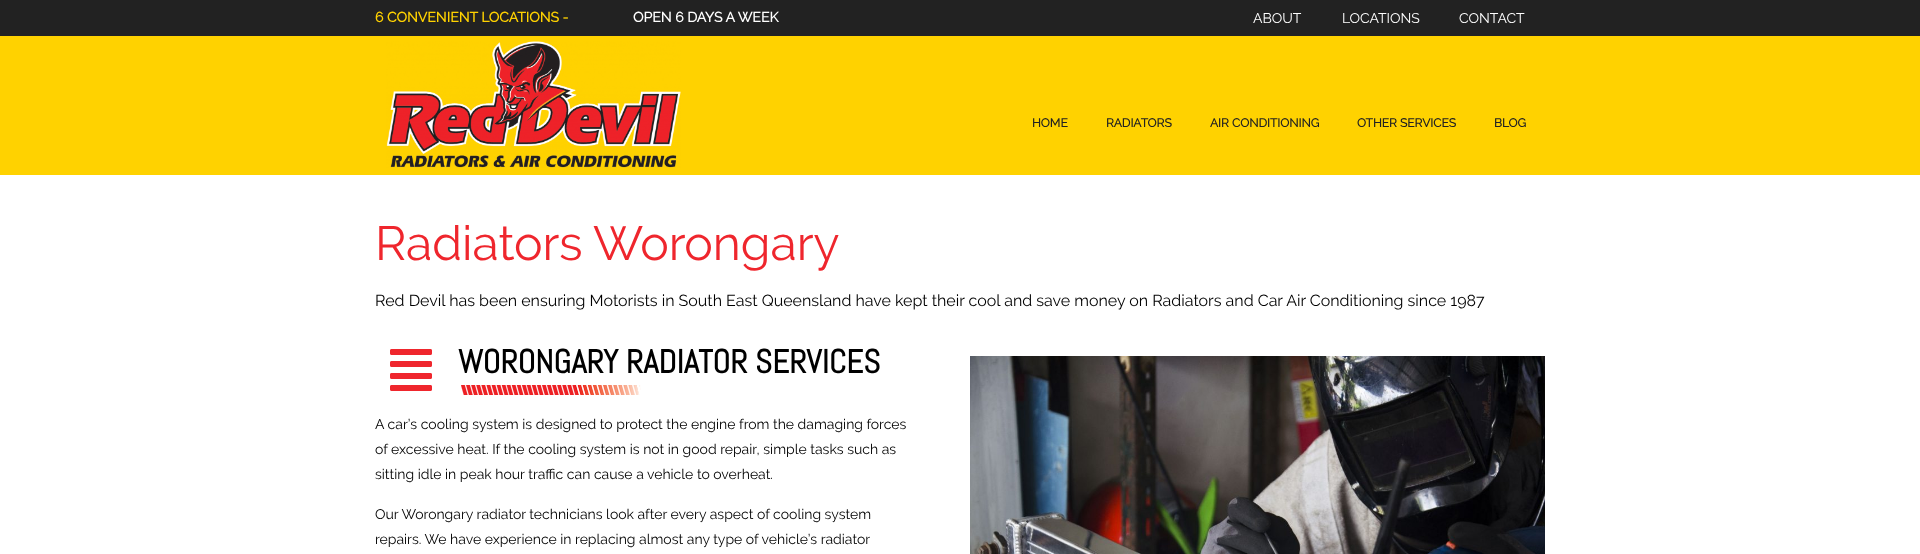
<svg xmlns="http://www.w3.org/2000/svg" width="1920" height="554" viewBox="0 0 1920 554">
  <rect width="100%" height="100%" fill="#fff"/>
  <path d="M0 0h1920v36H0z" fill="#222"/>
  <path d="M0 36h1920v139H0z" fill="#ffd200"/>
  <image x="386" y="41" width="295" height="127" href="img/1.png"/>
  <image x="390" y="349" width="42" height="42" href="img/2.png"/>
  <image x="461" y="385" width="180" height="10" href="img/3.png"/>
  <image x="970" y="356" width="575" height="198" href="img/4.png"/>
  <text x="375" y="22" font-family="Raleway" font-size="14" font-weight="bold" fill="#ffd200">6 CONVENIENT LOCATIONS -</text>
  <text x="633" y="22" font-family="Raleway" font-size="14" font-weight="bold" fill="#fff">OPEN 6 DAYS A WEEK</text>
  <g font-family="Raleway" font-size="14" fill="#fff">
    <text x="1253" y="23">ABOUT</text>
    <text x="1342" y="23">LOCATIONS</text>
    <text x="1459" y="23">CONTACT</text>
  </g>
  <g font-family="Raleway" font-size="12" font-weight="bold" fill="#222">
    <text x="1032" y="127">HOME</text>
    <text x="1106" y="127">RADIATORS</text>
    <text x="1210" y="127">AIR CONDITIONING</text>
    <text x="1357" y="127">OTHER SERVICES</text>
    <text x="1494" y="127">BLOG</text>
  </g>
  <g font-family="Raleway" font-size="48" fill="#ef262d">
    <text x="375" y="260">Radiators</text>
    <text x="593" y="260">Worongary</text>
  </g>
  <text x="375" y="306" font-family="Raleway" font-size="16" fill="#000">Red Devil has been ensuring Motorists in South East Queensland have kept their cool and save money on Radiators and Car Air Conditioning since 1987</text>
  <text x="458" y="373" font-family="Abel" font-size="33" font-weight="bold" fill="#000">WORONGARY RADIATOR SERVICES</text>
  <g font-family="Raleway" font-size="14" fill="#000">
    <text x="375" y="429">A car’s cooling system is designed to protect the engine from the damaging forces</text>
    <text x="375" y="454">of excessive heat. If the cooling system is not in good repair, simple tasks such as</text>
    <text x="375" y="479">sitting idle in peak hour traffic can cause a vehicle to overheat.</text>
    <text x="375" y="519">Our Worongary radiator technicians look after every aspect of cooling system</text>
    <text x="375" y="544">repairs. We have experience in replacing almost any type of vehicle’s radiator</text>
  </g>
</svg>
